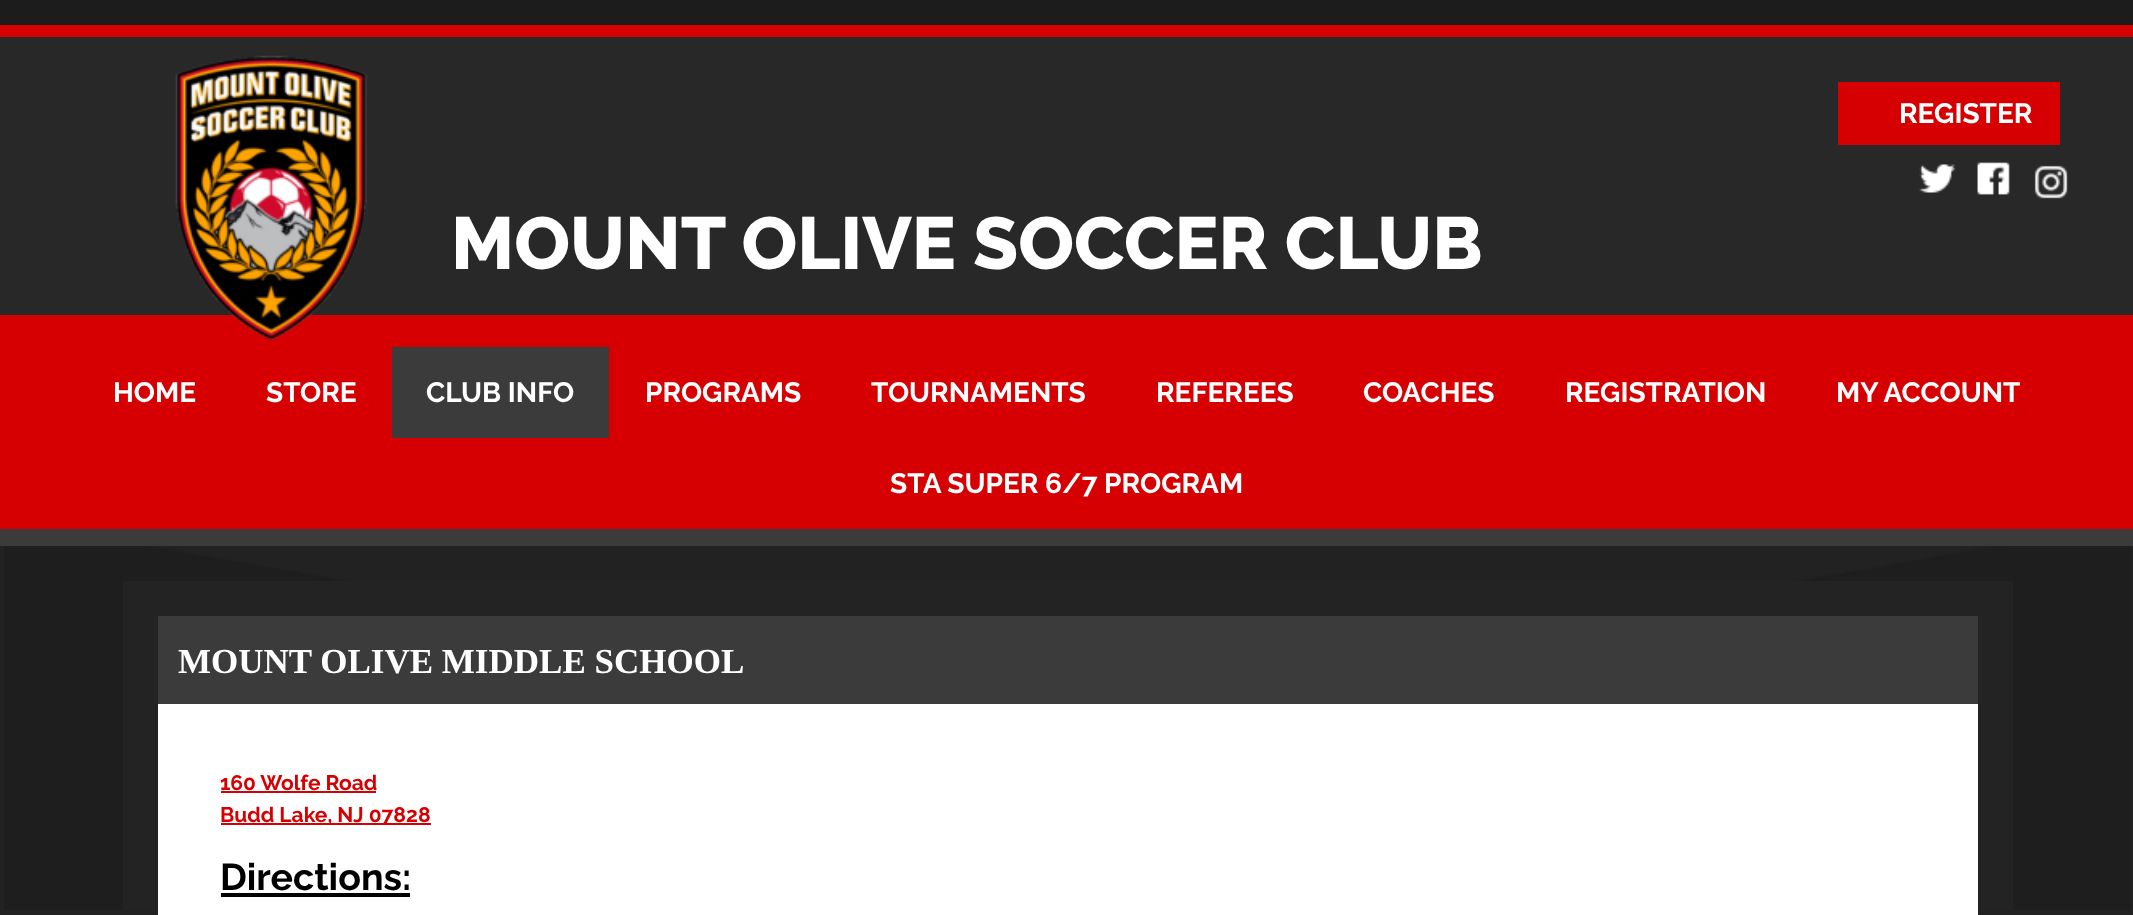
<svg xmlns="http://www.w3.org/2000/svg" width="2133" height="915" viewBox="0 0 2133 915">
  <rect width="100%" height="100%" fill="#222"/>
  <image x="4" y="546" width="2127" height="364" href="img/1.png"/>
  <path d="M0 0h2133v25H0z" fill="#1c1c1c"/>
  <path d="M0 25h2133v12H0z" fill="#d60002"/>
  <path d="M0 37h2133v278H0z" fill="#282828"/>
  <path d="M0 315h2133v214H0z" fill="#d60002"/>
  <image x="175" y="55" width="192" height="285" href="img/2.png"/>
  <path d="M1838 82h222v63H1838z" fill="#d60002"/>
  <image x="1919" y="164" width="37" height="29" href="img/3.png"/>
  <image x="1977" y="162" width="33" height="33" href="img/4.png"/>
  <image x="2034" y="165" width="34" height="34" href="img/5.png"/>
  <path d="M0 529h2133v17H0z" fill="#3b3b3b"/>
  <path d="M392 347h217v91H392z" fill="#3b3b3b"/>
  <path d="M123 581h1890v329H123z" fill="#232323"/>
  <path d="M158 616h1820v88H158z" fill="#3b3b3b"/>
  <path d="M158 704h1820v211H158z" fill="#fff"/>
  <path d="M221 791h155v2H221z" fill="#d60002"/>
  <path d="M221 823h210v2H221z" fill="#d60002"/>
  <path d="M221 893h189v4H221z" fill="#000"/>
  <text x="1899" y="123" font-family="Raleway" font-size="28" font-weight="bold" fill="#fff">REGISTER</text>
  <text x="451" y="269" font-family="Raleway" font-size="73.5" font-weight="800" fill="#fff">MOUNT OLIVE SOCCER CLUB</text>
  <g font-family="Raleway" font-size="28" font-weight="bold" fill="#fff">
    <text x="113" y="402">HOME</text>
    <text x="266" y="402">STORE</text>
    <text x="426" y="402">CLUB INFO</text>
    <text x="645" y="402">PROGRAMS</text>
    <text x="871" y="402">TOURNAMENTS</text>
    <text x="1156" y="402">REFEREES</text>
    <text x="1363" y="402">COACHES</text>
    <text x="1565" y="402">REGISTRATION</text>
    <text x="1836" y="402">MY ACCOUNT</text>
    <text x="890" y="493">STA SUPER 6/7 PROGRAM</text>
  </g>
  <text x="178" y="673" font-family="Liberation Serif" font-size="35" font-weight="bold" fill="#fff">MOUNT OLIVE MIDDLE SCHOOL</text>
  <g font-family="Raleway" font-size="21" font-weight="bold" fill="#d60002">
    <text x="220" y="790">160 Wolfe Road</text>
    <text x="220" y="822">Budd Lake, NJ 07828</text>
  </g>
  <text x="220" y="890" font-family="Raleway" font-size="37.5" font-weight="bold" fill="#000">Directions:</text>
</svg>
